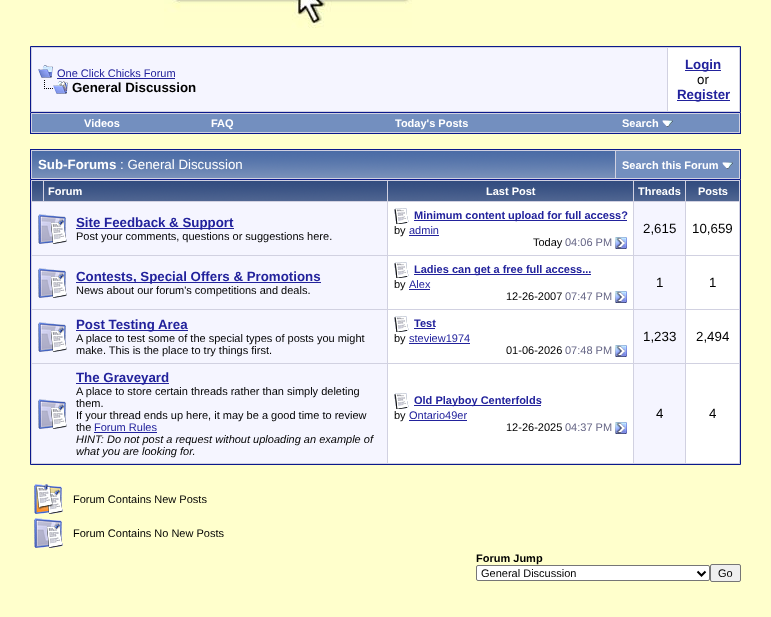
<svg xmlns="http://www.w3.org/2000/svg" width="771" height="617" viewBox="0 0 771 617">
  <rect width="100%" height="100%" fill="#ffc"/>
  <image x="164" y="0" width="248" height="28" href="img/1.png"/>
  <path d="M30.5 46.5h710v66H30.5z" fill="#d1d1e1" stroke="#0b198c"/>
  <path d="M32 48h635v63H32z" fill="#f5f5ff"/>
  <image x="38" y="65" width="15" height="13" href="img/2.png"/>
  <path d="M57 78h118v1H57z" fill="#22229c"/>
  <image x="44" y="80" width="24" height="14" href="img/3.png"/>
  <path d="M668 48h71v63H668z" fill="#fff"/>
  <path d="M685 70h36v1H685z" fill="#22229c"/>
  <path d="M677 100h53v1H677z" fill="#22229c"/>
  <path d="M31 113h709v20H31z" fill="#d1d1e1"/>
  <path d="M740 113h1v21H740z" fill="#0b198c"/>
  <path d="M30 133h711v1H30z" fill="#0b198c"/>
  <path d="M30 113h1v21H30z" fill="#0b198c"/>
  <path d="M32 114h707v18H32z" fill="#738fbf"/>
  <image x="662" y="120" width="11" height="7" href="img/4.png"/>
  <path d="M31 150h709v29H31z" fill="#d1d1e1"/>
  <path d="M30 149h711v1H30z" fill="#0b198c"/>
  <path d="M740 149h1v30H740z" fill="#0b198c"/>
  <path d="M30 149h1v30H30z" fill="#0b198c"/>
  <image x="32" y="151" width="583" height="27" href="img/5.png"/>
  <path d="M616 151h123v27H616z" fill="#738fbf"/>
  <image x="722" y="162" width="11" height="7" href="img/4.png"/>
  <path d="M30.5 179.5h710v285H30.5z" fill="#d1d1e1" stroke="#0b198c"/>
  <image x="32" y="181" width="11" height="20" href="img/6.png"/>
  <image x="44" y="181" width="343" height="20" href="img/7.png"/>
  <image x="388" y="181" width="245" height="20" href="img/8.png"/>
  <image x="634" y="181" width="51" height="20" href="img/9.png"/>
  <image x="686" y="181" width="53" height="20" href="img/10.png"/>
  <path d="M32 202h355v53H32z" fill="#f5f5ff"/>
  <image x="38" y="214" width="29" height="30" href="img/11.png"/>
  <path d="M76 228h158v1H76z" fill="#22229c"/>
  <path d="M388 202h245v53H388z" fill="#fff"/>
  <image x="394" y="208" width="15" height="16" href="img/12.png"/>
  <path d="M414 220h213v1H414z" fill="#22229c"/>
  <path d="M409 235h30v1H409z" fill="#22229c"/>
  <image x="615" y="237" width="12" height="12" href="img/13.png"/>
  <path d="M634 202h51v53H634z" fill="#f5f5ff"/>
  <path d="M686 202h53v53H686z" fill="#fff"/>
  <path d="M32 256h355v53H32z" fill="#f5f5ff"/>
  <image x="38" y="268" width="29" height="30" href="img/11.png"/>
  <path d="M76 282h245v1H76z" fill="#22229c"/>
  <path d="M388 256h245v53H388z" fill="#fff"/>
  <image x="394" y="262" width="15" height="16" href="img/12.png"/>
  <path d="M414 274h177v1H414z" fill="#22229c"/>
  <path d="M409 289h21v1H409z" fill="#22229c"/>
  <image x="615" y="291" width="12" height="12" href="img/13.png"/>
  <path d="M634 256h51v53H634z" fill="#f5f5ff"/>
  <path d="M686 256h53v53H686z" fill="#fff"/>
  <path d="M32 310h355v53H32z" fill="#f5f5ff"/>
  <image x="38" y="322" width="29" height="30" href="img/11.png"/>
  <path d="M76 330h112v1H76z" fill="#22229c"/>
  <path d="M388 310h245v53H388z" fill="#fff"/>
  <image x="394" y="316" width="15" height="16" href="img/12.png"/>
  <path d="M414 328h21v1H414z" fill="#22229c"/>
  <path d="M409 343h61v1H409z" fill="#22229c"/>
  <image x="615" y="345" width="12" height="12" href="img/13.png"/>
  <path d="M634 310h51v53H634z" fill="#f5f5ff"/>
  <path d="M686 310h53v53H686z" fill="#fff"/>
  <path d="M32 364h355v99H32z" fill="#f5f5ff"/>
  <image x="38" y="399" width="29" height="30" href="img/11.png"/>
  <path d="M76 383h93v1H76z" fill="#22229c"/>
  <path d="M94 432h63v1H94z" fill="#22229c"/>
  <path d="M388 364h245v99H388z" fill="#fff"/>
  <image x="394" y="393" width="15" height="16" href="img/12.png"/>
  <path d="M414 405h127v1H414z" fill="#22229c"/>
  <path d="M409 420h58v1H409z" fill="#22229c"/>
  <image x="615" y="422" width="12" height="12" href="img/13.png"/>
  <path d="M634 364h51v99H634z" fill="#f5f5ff"/>
  <path d="M686 364h53v99H686z" fill="#fff"/>
  <image x="34" y="484" width="29" height="30" href="img/14.png"/>
  <image x="34" y="518" width="29" height="30" href="img/15.png"/>
  <rect x="476.5" y="565.5" width="233" height="15" rx="1.5" fill="#fff" stroke="#767676"/>
  <path d="M697.5 571.5L701.5 575.5L705.5 571.5" fill="none" stroke="#000" stroke-width="2"/>
  <rect x="710.5" y="564.5" width="30" height="17" rx="1.5" fill="#efefef" stroke="#767676"/>
  <text x="57" y="77" font-family="Liberation Sans" font-size="11" fill="#22229c">One Click Chicks Forum</text>
  <text x="72" y="92" font-family="Liberation Sans" font-size="13.3" font-weight="bold" fill="#000">General Discussion</text>
  <text x="685" y="69" font-family="Liberation Sans" font-size="13.3" font-weight="bold" fill="#22229c">Login</text>
  <text x="697" y="84" font-family="Liberation Sans" font-size="13.3" fill="#000">or</text>
  <text x="677" y="99" font-family="Liberation Sans" font-size="13.3" font-weight="bold" fill="#22229c">Register</text>
  <g font-family="Liberation Sans" font-size="11" font-weight="bold" fill="#fff">
    <text x="84" y="127">Videos</text>
    <text x="211" y="127">FAQ</text>
    <text x="395" y="127">Today's Posts</text>
    <text x="622" y="127">Search</text>
  </g>
  <text x="38" y="169" font-family="Liberation Sans" font-size="13.3" font-weight="bold" fill="#fff">Sub-Forums</text>
  <text x="120" y="169" font-family="Liberation Sans" font-size="13.3" fill="#fff">: General Discussion</text>
  <g font-family="Liberation Sans" font-size="11" font-weight="bold" fill="#fff">
    <text x="622" y="169">Search this Forum</text>
    <text x="48" y="195">Forum</text>
    <text x="486" y="195">Last Post</text>
    <text x="638" y="195">Threads</text>
    <text x="698" y="195">Posts</text>
  </g>
  <text x="76" y="227" font-family="Liberation Sans" font-size="13.3" font-weight="bold" fill="#22229c">Site Feedback &amp; Support</text>
  <text x="76" y="240" font-family="Liberation Sans" font-size="11" fill="#000">Post your comments, questions or suggestions here.</text>
  <text x="414" y="219" font-family="Liberation Sans" font-size="11" font-weight="bold" fill="#22229c">Minimum content upload for full access?</text>
  <text x="394" y="234" font-family="Liberation Sans" font-size="11" fill="#000">by</text>
  <text x="409" y="234" font-family="Liberation Sans" font-size="11" fill="#22229c">admin</text>
  <text x="533" y="246" font-family="Liberation Sans" font-size="11" fill="#000">Today</text>
  <text x="565" y="246" font-family="Liberation Sans" font-size="11" fill="#666686">04:06 PM</text>
  <g font-family="Liberation Sans" font-size="13.3" fill="#000">
    <text x="643" y="233">2,615</text>
    <text x="692" y="233">10,659</text>
  </g>
  <text x="76" y="281" font-family="Liberation Sans" font-size="13.3" font-weight="bold" fill="#22229c">Contests, Special Offers &amp; Promotions</text>
  <text x="76" y="294" font-family="Liberation Sans" font-size="11" fill="#000">News about our forum's competitions and deals.</text>
  <text x="414" y="273" font-family="Liberation Sans" font-size="11" font-weight="bold" fill="#22229c">Ladies can get a free full access...</text>
  <text x="394" y="288" font-family="Liberation Sans" font-size="11" fill="#000">by</text>
  <text x="409" y="288" font-family="Liberation Sans" font-size="11" fill="#22229c">Alex</text>
  <text x="506" y="300" font-family="Liberation Sans" font-size="11" fill="#000">12-26-2007</text>
  <text x="565" y="300" font-family="Liberation Sans" font-size="11" fill="#666686">07:47 PM</text>
  <g font-family="Liberation Sans" font-size="13.3" fill="#000">
    <text x="656" y="287">1</text>
    <text x="709" y="287">1</text>
  </g>
  <text x="76" y="329" font-family="Liberation Sans" font-size="13.3" font-weight="bold" fill="#22229c">Post Testing Area</text>
  <g font-family="Liberation Sans" font-size="11" fill="#000">
    <text x="76" y="342">A place to test some of the special types of posts you might</text>
    <text x="76" y="354">make. This is the place to try things first.</text>
  </g>
  <text x="414" y="327" font-family="Liberation Sans" font-size="11" font-weight="bold" fill="#22229c">Test</text>
  <text x="394" y="342" font-family="Liberation Sans" font-size="11" fill="#000">by</text>
  <text x="409" y="342" font-family="Liberation Sans" font-size="11" fill="#22229c">steview1974</text>
  <text x="506" y="354" font-family="Liberation Sans" font-size="11" fill="#000">01-06-2026</text>
  <text x="565" y="354" font-family="Liberation Sans" font-size="11" fill="#666686">07:48 PM</text>
  <g font-family="Liberation Sans" font-size="13.3" fill="#000">
    <text x="643" y="341">1,233</text>
    <text x="696" y="341">2,494</text>
  </g>
  <text x="76" y="382" font-family="Liberation Sans" font-size="13.3" font-weight="bold" fill="#22229c">The Graveyard</text>
  <g font-family="Liberation Sans" font-size="11" fill="#000">
    <text x="76" y="395">A place to store certain threads rather than simply deleting</text>
    <text x="76" y="407">them.</text>
    <text x="76" y="419">If your thread ends up here, it may be a good time to review</text>
    <text x="76" y="431">the</text>
  </g>
  <text x="94" y="431" font-family="Liberation Sans" font-size="11" fill="#22229c">Forum Rules</text>
  <g font-family="Liberation Sans" font-size="11" font-style="italic" fill="#000">
    <text x="76" y="443">HINT: Do not post a request without uploading an example of</text>
    <text x="76" y="455">what you are looking for.</text>
  </g>
  <text x="414" y="404" font-family="Liberation Sans" font-size="11" font-weight="bold" fill="#22229c">Old Playboy Centerfolds</text>
  <text x="394" y="419" font-family="Liberation Sans" font-size="11" fill="#000">by</text>
  <text x="409" y="419" font-family="Liberation Sans" font-size="11" fill="#22229c">Ontario49er</text>
  <text x="506" y="431" font-family="Liberation Sans" font-size="11" fill="#000">12-26-2025</text>
  <text x="565" y="431" font-family="Liberation Sans" font-size="11" fill="#666686">04:37 PM</text>
  <g font-family="Liberation Sans" font-size="13.3" fill="#000">
    <text x="656" y="418">4</text>
    <text x="709" y="418">4</text>
  </g>
  <g font-family="Liberation Sans" font-size="11" fill="#000">
    <text x="73" y="503">Forum Contains New Posts</text>
    <text x="73" y="537">Forum Contains No New Posts</text>
  </g>
  <text x="476" y="562" font-family="Liberation Sans" font-size="11" font-weight="bold" fill="#000">Forum Jump</text>
  <g font-family="Liberation Sans" font-size="11" fill="#000">
    <text x="481" y="577">General Discussion</text>
    <text x="718" y="577">Go</text>
  </g>
</svg>
